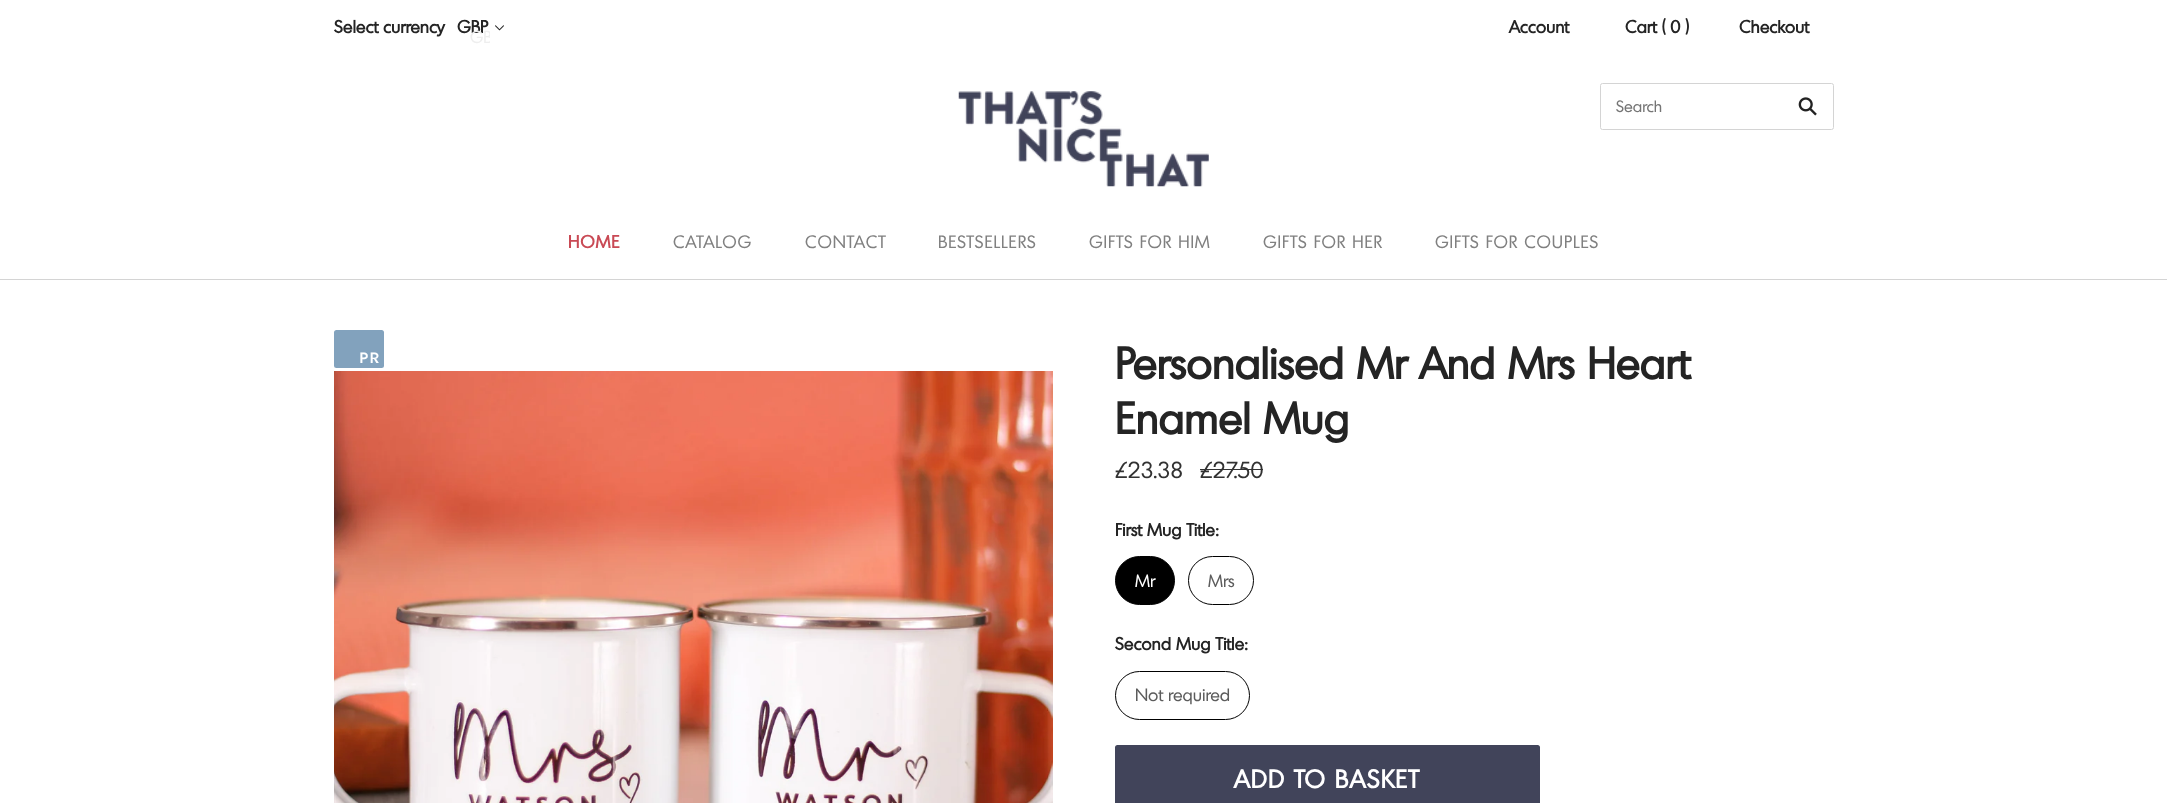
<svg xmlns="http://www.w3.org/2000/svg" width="2167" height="803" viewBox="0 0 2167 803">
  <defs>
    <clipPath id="clip1"><path d="M470 26h20v20H470z"/></clipPath>
  </defs>
  <rect width="100%" height="100%" fill="#fff"/>
  <image x="495" y="25" width="9" height="6" href="img/1.png"/>
  <rect x="1600.5" y="83.5" width="233" height="46" rx="2" fill="none" stroke="#d4d4d4"/>
  <image x="1798" y="97" width="19" height="19" href="img/2.png"/>
  <image x="958" y="91" width="251" height="96" href="img/3.png"/>
  <path d="M0 279h2167v1H0z" fill="#d4d4d4"/>
  <rect x="334" y="330" width="50" height="38" rx="2.5" fill="#82a2bd"/>
  <image x="334" y="371" width="719" height="432" href="img/4.png"/>
  <path d="M1200 469h63v1H1200z" fill="#323232"/>
  <rect x="1115.5" y="556.5" width="59" height="48" rx="24" fill="#000" stroke="#000"/>
  <rect x="1188.5" y="556.5" width="65" height="48" rx="24" fill="none" stroke="#000"/>
  <rect x="1115.5" y="671.5" width="134" height="48" rx="24" fill="none" stroke="#000"/>
  <rect x="1115" y="745" width="425" height="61" rx="2.5" fill="#41445a"/>
  <g font-family="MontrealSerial" font-size="17.5" font-weight="bold" fill="#242424">
    <text x="334" y="33">Select currency</text>
    <text x="457" y="33">GBP</text>
  </g>
  <g clip-path="url(#clip1)">
    <text x="470" y="43" font-family="MontrealSerial" font-size="17" fill="#eee">GB</text>
  </g>
  <g font-family="MontrealSerial" font-size="17.5" font-weight="bold" fill="#242424">
    <text x="1509" y="33">Account</text>
    <text x="1625" y="33">Cart ( 0 )</text>
    <text x="1739" y="33">Checkout</text>
  </g>
  <text x="1616" y="112" font-family="MontrealSerial" font-size="16" fill="#757575">Search</text>
  <text x="568" y="248" font-family="MontrealSerial" font-size="17.5" font-weight="bold" letter-spacing="0.9" fill="#c94a55">HOME</text>
  <g font-family="MontrealSerial" font-size="17.5" letter-spacing="0.9" fill="#808080">
    <text x="673" y="248">CATALOG</text>
    <text x="805" y="248">CONTACT</text>
    <text x="938" y="248">BESTSELLERS</text>
    <text x="1089" y="248">GIFTS FOR HIM</text>
    <text x="1263" y="248">GIFTS FOR HER</text>
    <text x="1435" y="248">GIFTS FOR COUPLES</text>
  </g>
  <text x="359" y="363" font-family="Karla" font-size="16" font-weight="bold" letter-spacing="1" fill="#fff">PR</text>
  <g font-family="MontrealSerial" font-size="43.75" font-weight="bold" fill="#242424">
    <text x="1115" y="379">Personalised Mr And Mrs Heart</text>
    <text x="1115" y="434">Enamel Mug</text>
  </g>
  <g font-family="MontrealSerial" font-size="22.5" fill="#323232">
    <text x="1115" y="478">£23.38</text>
    <text x="1200" y="478">£27.50</text>
  </g>
  <text x="1115" y="536" font-family="MontrealSerial" font-size="17.5" font-weight="bold" fill="#242424">First Mug Title:</text>
  <text x="1135" y="587" font-family="MontrealSerial" font-size="17.5" fill="#fff">Mr</text>
  <text x="1208" y="587" font-family="MontrealSerial" font-size="17.5" fill="#5c5c5c">Mrs</text>
  <text x="1115" y="650" font-family="MontrealSerial" font-size="17.5" font-weight="bold" fill="#242424">Second Mug Title:</text>
  <text x="1135" y="701" font-family="MontrealSerial" font-size="17.5" fill="#5c5c5c">Not required</text>
  <text x="1234" y="788" font-family="MontrealSerial" font-size="25" font-weight="bold" letter-spacing="1.25" fill="#fff">ADD TO BASKET</text>
</svg>
